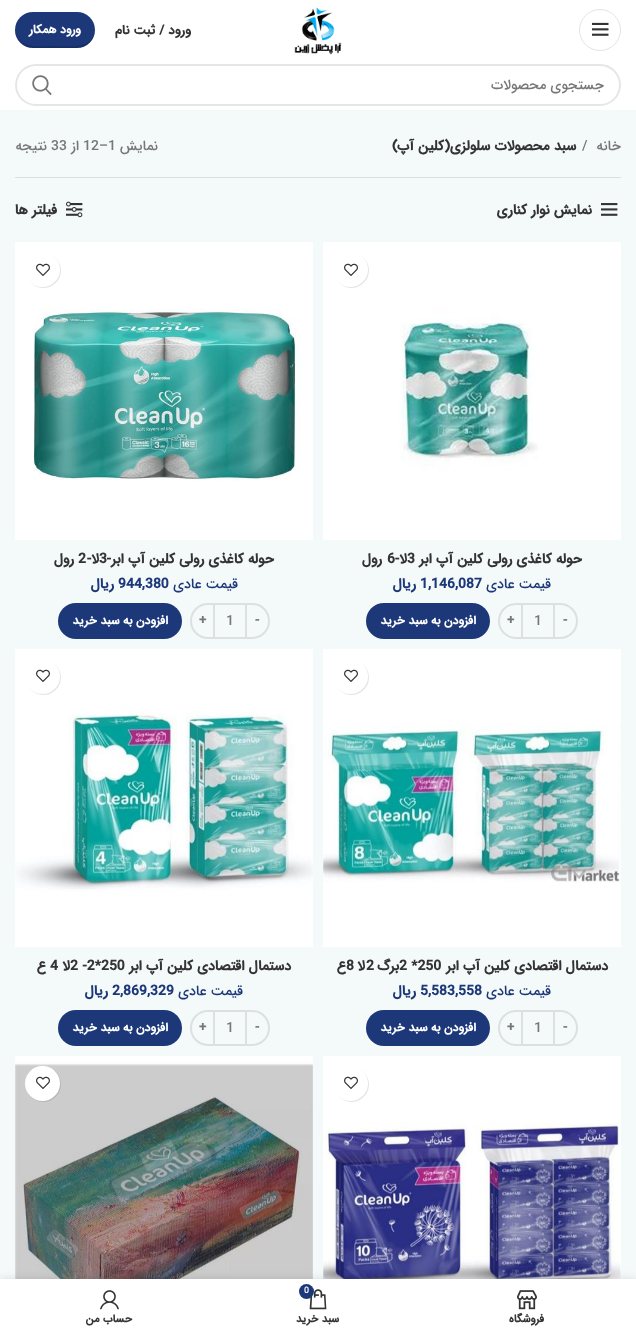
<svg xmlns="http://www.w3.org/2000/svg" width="636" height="1334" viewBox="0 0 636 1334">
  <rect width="100%" height="100%" fill="#fff"/>
  <circle cx="600" cy="30" r="20.5" fill="none" stroke="#e4e4e4"/>
  <image x="592" y="22" width="17" height="14" href="img/1.png"/>
  <image x="294" y="7" width="48" height="48" href="img/2.png"/>
  <rect x="15" y="12" width="80" height="36" rx="18" fill="#1c3879"/>
  <path d="M15 29V30C15 40 23 48 33 48H77C87 48 95 40 95 30V29C94 50 69 46 55 46C41 46 16 50 15 29Z" fill="#00000026"/>
  <rect x="16" y="65" width="604" height="40" rx="20" fill="none" stroke="#e6e6e6" stroke-width="2"/>
  <image x="32" y="75" width="20" height="21" href="img/3.png"/>
  <path d="M0 110h636v1169H0z" fill="#f4f9f9"/>
  <path d="M15 177h606v1H15z" fill="#dadfdf"/>
  <image x="601" y="203" width="17" height="13" href="img/4.png"/>
  <image x="66" y="201" width="17" height="17" href="img/5.png"/>
  <image x="323" y="242" width="298" height="298" href="img/6.png"/>
  <rect x="334" y="253" width="35" height="35" rx="17.5" fill="#0000001a" filter="blur(0.5px)"/>
  <circle cx="350.5" cy="269.5" r="17.5" fill="#fff"/>
  <image x="344" y="263" width="14" height="13" href="img/7.png"/>
  <path d="M554 604H560C569.5 604 577 611.5 577 621C577 630.5 569.5 638 560 638H554Z" fill="none" stroke="#dce0e0" stroke-width="2"/>
  <path d="M523 603h30v2H523z" fill="#dce0e0"/>
  <path d="M523 637h30v2H523z" fill="#dce0e0"/>
  <path d="M516 604H522V638H516C506.5 638 499 630.5 499 621C499 611.5 506.5 604 516 604Z" fill="none" stroke="#dce0e0" stroke-width="2"/>
  <rect x="366" y="603" width="124" height="36" rx="18" fill="#1c3879"/>
  <image x="15" y="242" width="298" height="298" href="img/8.png"/>
  <rect x="26" y="253" width="35" height="35" rx="17.5" fill="#0000001a" filter="blur(0.5px)"/>
  <circle cx="42.5" cy="269.5" r="17.5" fill="#fff"/>
  <image x="36" y="263" width="14" height="13" href="img/7.png"/>
  <path d="M246 604H252C261.5 604 269 611.5 269 621C269 630.5 261.5 638 252 638H246Z" fill="none" stroke="#dce0e0" stroke-width="2"/>
  <path d="M215 603h30v2H215z" fill="#dce0e0"/>
  <path d="M215 637h30v2H215z" fill="#dce0e0"/>
  <path d="M208 604H214V638H208C198.5 638 191 630.5 191 621C191 611.5 198.5 604 208 604Z" fill="none" stroke="#dce0e0" stroke-width="2"/>
  <rect x="58" y="603" width="124" height="36" rx="18" fill="#1c3879"/>
  <image x="323" y="649" width="298" height="298" href="img/9.png"/>
  <rect x="334" y="660" width="35" height="35" rx="17.5" fill="#0000001a" filter="blur(0.5px)"/>
  <circle cx="350.5" cy="676.5" r="17.5" fill="#fff"/>
  <image x="344" y="669" width="14" height="13" href="img/7.png"/>
  <path d="M554 1011H560C569.5 1011 577 1018.5 577 1028C577 1037.5 569.5 1045 560 1045H554Z" fill="none" stroke="#dce0e0" stroke-width="2"/>
  <path d="M523 1010h30v2H523z" fill="#dce0e0"/>
  <path d="M523 1044h30v2H523z" fill="#dce0e0"/>
  <path d="M516 1011H522V1045H516C506.5 1045 499 1037.5 499 1028C499 1018.5 506.5 1011 516 1011Z" fill="none" stroke="#dce0e0" stroke-width="2"/>
  <rect x="366" y="1010" width="124" height="36" rx="18" fill="#1c3879"/>
  <image x="15" y="649" width="298" height="298" href="img/10.png"/>
  <rect x="26" y="660" width="35" height="35" rx="17.5" fill="#0000001a" filter="blur(0.5px)"/>
  <circle cx="42.5" cy="676.5" r="17.5" fill="#fff"/>
  <image x="36" y="669" width="14" height="13" href="img/7.png"/>
  <path d="M246 1011H252C261.5 1011 269 1018.5 269 1028C269 1037.5 261.5 1045 252 1045H246Z" fill="none" stroke="#dce0e0" stroke-width="2"/>
  <path d="M215 1010h30v2H215z" fill="#dce0e0"/>
  <path d="M215 1044h30v2H215z" fill="#dce0e0"/>
  <path d="M208 1011H214V1045H208C198.5 1045 191 1037.5 191 1028C191 1018.5 198.5 1011 208 1011Z" fill="none" stroke="#dce0e0" stroke-width="2"/>
  <rect x="58" y="1010" width="124" height="36" rx="18" fill="#1c3879"/>
  <image x="323" y="1056" width="298" height="223" href="img/11.png"/>
  <rect x="334" y="1067" width="35" height="35" rx="17.5" fill="#0000001a" filter="blur(0.5px)"/>
  <circle cx="350.5" cy="1083.5" r="17.5" fill="#fff"/>
  <image x="344" y="1076" width="14" height="13" href="img/7.png"/>
  <image x="15" y="1056" width="298" height="223" href="img/12.png"/>
  <rect x="26" y="1067" width="35" height="35" rx="17.5" fill="#0000001a" filter="blur(0.5px)"/>
  <circle cx="42.5" cy="1083.5" r="17.5" fill="#fff"/>
  <image x="36" y="1076" width="14" height="13" href="img/7.png"/>
  <path d="M0 1279h636v55H0z" fill="#0000001f" filter="blur(4.5px)"/>
  <path d="M0 1279h636v55H0z" fill="#fff"/>
  <image x="517" y="1290" width="20" height="20" href="img/13.png"/>
  <image x="309" y="1289" width="18" height="21" href="img/14.png"/>
  <circle cx="306.5" cy="1291.5" r="7.5" fill="#1c3879"/>
  <image x="100" y="1290" width="19" height="20" href="img/15.png"/>
  <text x="191" y="34" font-family="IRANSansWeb" font-size="13" font-weight="bold" direction="rtl" fill="#333">ورود / ثبت نام</text>
  <text x="81" y="33" font-family="IRANSansWeb" font-size="12" font-weight="bold" direction="rtl" fill="#fff">ورود همکار</text>
  <g font-family="IRANSansWeb" font-size="14" font-weight="500" direction="rtl" fill="#777">
    <text x="604" y="89">جستجوی محصولات</text>
    <text x="621" y="150">خانه</text>
  </g>
  <text x="582" y="150" font-family="IRANSansWeb" font-size="14" font-weight="500" fill="#777">/</text>
  <text x="576" y="150" font-family="IRANSansWeb" font-size="14" font-weight="bold" direction="rtl" fill="#333">سبد محصولات سلولزی(کلین آپ)</text>
  <text x="158" y="150" font-family="IRANSansWeb" font-size="14" font-weight="500" direction="rtl" fill="#777">نمایش</text>
  <text x="83" y="150" font-family="IRANSansWeb" font-size="14" font-weight="500" fill="#777">12–1</text>
  <text x="79" y="150" font-family="IRANSansWeb" font-size="14" font-weight="500" direction="rtl" fill="#777">از</text>
  <text x="51" y="150" font-family="IRANSansWeb" font-size="14" font-weight="500" fill="#777">33</text>
  <text x="47" y="150" font-family="IRANSansWeb" font-size="14" font-weight="500" direction="rtl" fill="#777">نتیجه</text>
  <g font-family="IRANSansWeb" font-size="14" font-weight="bold" direction="rtl" fill="#333">
    <text x="592" y="214">نمایش نوار کناری</text>
    <text x="57" y="214">فیلتر ها</text>
    <text x="582" y="563">حوله کاغذی رولی کلین آپ ابر</text>
  </g>
  <text x="407" y="563" font-family="IRANSansWeb" font-size="14" font-weight="bold" fill="#333">3</text>
  <text x="407" y="563" font-family="IRANSansWeb" font-size="14" font-weight="bold" direction="rtl" fill="#333">لا-</text>
  <text x="387" y="563" font-family="IRANSansWeb" font-size="14" font-weight="bold" fill="#333">6</text>
  <text x="382" y="563" font-family="IRANSansWeb" font-size="14" font-weight="bold" direction="rtl" fill="#333">رول</text>
  <text x="551" y="588" font-family="IRANSansWeb" font-size="14" font-weight="500" direction="rtl" fill="#1c3879">قیمت عادی</text>
  <text x="420" y="588" font-family="IRANSansWeb" font-size="14" font-weight="bold" fill="#1c3879">1,146,087</text>
  <text x="416" y="588" font-family="IRANSansWeb" font-size="14" font-weight="bold" direction="rtl" fill="#1c3879">ریال</text>
  <text x="563" y="624" font-family="IRANSansWeb" font-size="13" font-weight="bold" fill="#777">-</text>
  <text x="534" y="625" font-family="IRANSansWeb" font-size="14" font-weight="500" fill="#777">1</text>
  <text x="507" y="624" font-family="IRANSansWeb" font-size="13" font-weight="bold" fill="#777">+</text>
  <text x="476" y="624" font-family="IRANSansWeb" font-size="12" font-weight="bold" direction="rtl" fill="#fff">افزودن به سبد خرید</text>
  <text x="274" y="563" font-family="IRANSansWeb" font-size="14" font-weight="bold" direction="rtl" fill="#333">حوله کاغذی رولی کلین آپ ابر-</text>
  <text x="99" y="563" font-family="IRANSansWeb" font-size="14" font-weight="bold" fill="#333">3</text>
  <text x="99" y="563" font-family="IRANSansWeb" font-size="14" font-weight="bold" direction="rtl" fill="#333">لا-</text>
  <text x="78" y="563" font-family="IRANSansWeb" font-size="14" font-weight="bold" fill="#333">2</text>
  <text x="74" y="563" font-family="IRANSansWeb" font-size="14" font-weight="bold" direction="rtl" fill="#333">رول</text>
  <text x="238" y="588" font-family="IRANSansWeb" font-size="14" font-weight="500" direction="rtl" fill="#1c3879">قیمت عادی</text>
  <text x="118" y="588" font-family="IRANSansWeb" font-size="14" font-weight="bold" fill="#1c3879">944,380</text>
  <text x="114" y="588" font-family="IRANSansWeb" font-size="14" font-weight="bold" direction="rtl" fill="#1c3879">ریال</text>
  <text x="255" y="624" font-family="IRANSansWeb" font-size="13" font-weight="bold" fill="#777">-</text>
  <text x="226" y="625" font-family="IRANSansWeb" font-size="14" font-weight="500" fill="#777">1</text>
  <text x="199" y="624" font-family="IRANSansWeb" font-size="13" font-weight="bold" fill="#777">+</text>
  <text x="168" y="624" font-family="IRANSansWeb" font-size="12" font-weight="bold" direction="rtl" fill="#fff">افزودن به سبد خرید</text>
  <text x="608" y="970" font-family="IRANSansWeb" font-size="14" font-weight="bold" direction="rtl" fill="#333">دستمال اقتصادی کلین آپ ابر</text>
  <text x="399" y="970" font-family="IRANSansWeb" font-size="14" font-weight="bold" fill="#333">2 *250</text>
  <text x="399" y="970" font-family="IRANSansWeb" font-size="14" font-weight="bold" direction="rtl" fill="#333">برگ</text>
  <text x="366" y="970" font-family="IRANSansWeb" font-size="14" font-weight="bold" fill="#333">2</text>
  <text x="365" y="970" font-family="IRANSansWeb" font-size="14" font-weight="bold" direction="rtl" fill="#333">لا</text>
  <text x="346" y="970" font-family="IRANSansWeb" font-size="14" font-weight="bold" fill="#333">8</text>
  <text x="346" y="970" font-family="IRANSansWeb" font-size="14" font-weight="bold" direction="rtl" fill="#333">ع</text>
  <text x="551" y="995" font-family="IRANSansWeb" font-size="14" font-weight="500" direction="rtl" fill="#1c3879">قیمت عادی</text>
  <text x="420" y="995" font-family="IRANSansWeb" font-size="14" font-weight="bold" fill="#1c3879">5,583,558</text>
  <text x="416" y="995" font-family="IRANSansWeb" font-size="14" font-weight="bold" direction="rtl" fill="#1c3879">ریال</text>
  <text x="563" y="1031" font-family="IRANSansWeb" font-size="13" font-weight="bold" fill="#777">-</text>
  <text x="534" y="1032" font-family="IRANSansWeb" font-size="14" font-weight="500" fill="#777">1</text>
  <text x="507" y="1031" font-family="IRANSansWeb" font-size="13" font-weight="bold" fill="#777">+</text>
  <text x="476" y="1031" font-family="IRANSansWeb" font-size="12" font-weight="bold" direction="rtl" fill="#fff">افزودن به سبد خرید</text>
  <text x="291" y="970" font-family="IRANSansWeb" font-size="14" font-weight="bold" direction="rtl" fill="#333">دستمال اقتصادی کلین آپ ابر</text>
  <text x="70" y="970" font-family="IRANSansWeb" font-size="14" font-weight="bold" fill="#333">2 -2*250</text>
  <text x="70" y="970" font-family="IRANSansWeb" font-size="14" font-weight="bold" direction="rtl" fill="#333">لا</text>
  <text x="50" y="970" font-family="IRANSansWeb" font-size="14" font-weight="bold" fill="#333">4</text>
  <text x="46" y="970" font-family="IRANSansWeb" font-size="14" font-weight="bold" direction="rtl" fill="#333">ع</text>
  <text x="243" y="995" font-family="IRANSansWeb" font-size="14" font-weight="500" direction="rtl" fill="#1c3879">قیمت عادی</text>
  <text x="112" y="995" font-family="IRANSansWeb" font-size="14" font-weight="bold" fill="#1c3879">2,869,329</text>
  <text x="108" y="995" font-family="IRANSansWeb" font-size="14" font-weight="bold" direction="rtl" fill="#1c3879">ریال</text>
  <text x="255" y="1031" font-family="IRANSansWeb" font-size="13" font-weight="bold" fill="#777">-</text>
  <text x="226" y="1032" font-family="IRANSansWeb" font-size="14" font-weight="500" fill="#777">1</text>
  <text x="199" y="1031" font-family="IRANSansWeb" font-size="13" font-weight="bold" fill="#777">+</text>
  <text x="168" y="1031" font-family="IRANSansWeb" font-size="12" font-weight="bold" direction="rtl" fill="#fff">افزودن به سبد خرید</text>
  <text x="544" y="1322" font-family="IRANSansWeb" font-size="11" font-weight="bold" direction="rtl" fill="#333">فروشگاه</text>
  <text x="304" y="1293" font-family="IRANSansWeb" font-size="9" font-weight="500" fill="#fff">0</text>
  <g font-family="IRANSansWeb" font-size="11" font-weight="bold" direction="rtl" fill="#333">
    <text x="339" y="1322">سبد خرید</text>
    <text x="132" y="1322">حساب من</text>
  </g>
</svg>
